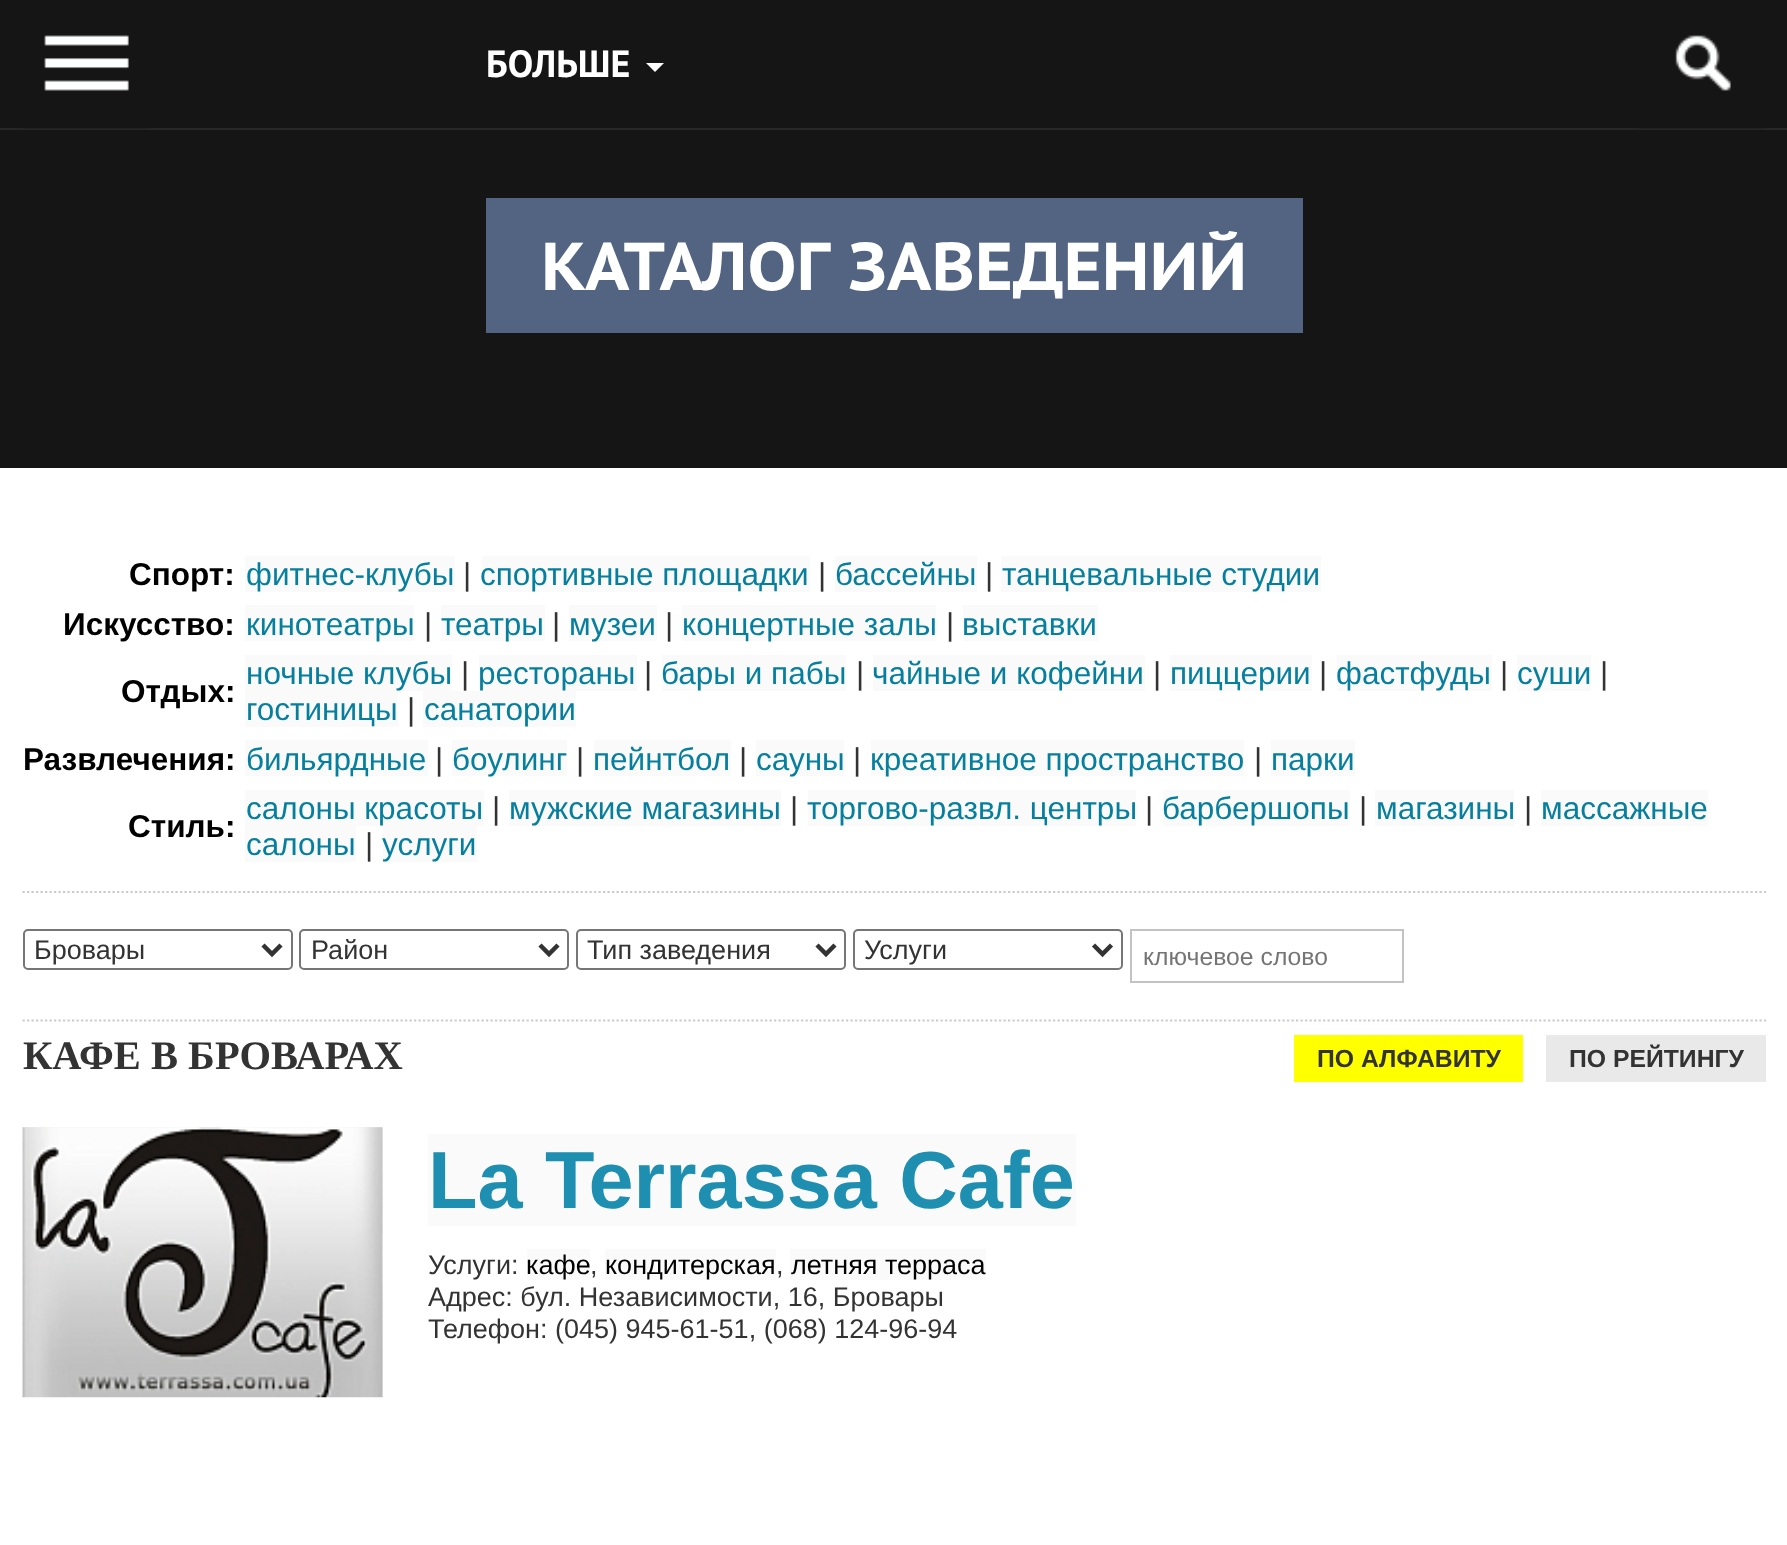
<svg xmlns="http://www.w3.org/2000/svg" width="1787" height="1545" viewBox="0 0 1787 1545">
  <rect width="100%" height="100%" fill="#fff"/>
  <path d="M0 0h1787v468H0z" fill="#161515"/>
  <path d="M0 128h1787v2H0z" fill="#272727"/>
  <image x="23" y="35" width="127" height="94" href="img/1.png"/>
  <path d="M646 63H664L655 72Z" fill="#fff"/>
  <image x="1638" y="35" width="128" height="94" href="img/2.png"/>
  <path d="M486 198h817v135H486z" fill="#526481"/>
  <path d="M245 556h210v36H245z" fill="#fafafa"/>
  <path d="M482 556h328v36H482z" fill="#fafafa"/>
  <path d="M835 556h142v36H835z" fill="#fafafa"/>
  <path d="M1001 556h320v36H1001z" fill="#fafafa"/>
  <path d="M245 605h169v36H245z" fill="#fafafa"/>
  <path d="M441 605h104v36H441z" fill="#fafafa"/>
  <path d="M569 605h88v36H569z" fill="#fafafa"/>
  <path d="M682 605h254v36H682z" fill="#fafafa"/>
  <path d="M963 605h135v36H963z" fill="#fafafa"/>
  <path d="M245 655h207v36H245z" fill="#fafafa"/>
  <path d="M479 655h158v36H479z" fill="#fafafa"/>
  <path d="M662 655h184v36H662z" fill="#fafafa"/>
  <path d="M873 655h272v36H873z" fill="#fafafa"/>
  <path d="M1170 655h142v36H1170z" fill="#fafafa"/>
  <path d="M1337 655h155v36H1337z" fill="#fafafa"/>
  <path d="M1517 655h74v36H1517z" fill="#fafafa"/>
  <path d="M245 691h153v36H245z" fill="#fafafa"/>
  <path d="M423 691h153v36H423z" fill="#fafafa"/>
  <path d="M245 740h183v36H245z" fill="#fafafa"/>
  <path d="M452 740h115v36H452z" fill="#fafafa"/>
  <path d="M594 740h137v36H594z" fill="#fafafa"/>
  <path d="M756 740h88v36H756z" fill="#fafafa"/>
  <path d="M871 740h373v36H871z" fill="#fafafa"/>
  <path d="M1271 740h84v36H1271z" fill="#fafafa"/>
  <path d="M245 790h239v36H245z" fill="#fafafa"/>
  <path d="M509 790h272v36H509z" fill="#fafafa"/>
  <path d="M808 790h328v36H808z" fill="#fafafa"/>
  <path d="M1163 790h187v36H1163z" fill="#fafafa"/>
  <path d="M1375 790h139v36H1375z" fill="#fafafa"/>
  <path d="M1541 790h167v36H1541z" fill="#fafafa"/>
  <path d="M245 826h111v36H245z" fill="#fafafa"/>
  <path d="M383 826h94v36H383z" fill="#fafafa"/>
  <path d="M22.5 892H1766" fill="none" stroke="#cbcbcb" stroke-width="2.2" stroke-dasharray="2.25 2.25"/>
  <rect x="24" y="930" width="268" height="39" rx="4" fill="none" stroke="#767676" stroke-width="2"/>
  <path d="M263 945L272 954L281 945" fill="none" stroke="#333" stroke-width="4.5"/>
  <rect x="300" y="930" width="268" height="39" rx="4" fill="none" stroke="#767676" stroke-width="2"/>
  <path d="M540 945L549 954L558 945" fill="none" stroke="#333" stroke-width="4.5"/>
  <rect x="577" y="930" width="268" height="39" rx="4" fill="none" stroke="#767676" stroke-width="2"/>
  <path d="M817 945L826 954L835 945" fill="none" stroke="#333" stroke-width="4.5"/>
  <rect x="854" y="930" width="268" height="39" rx="4" fill="none" stroke="#767676" stroke-width="2"/>
  <path d="M1093.5 945L1102.5 954L1111.5 945" fill="none" stroke="#333" stroke-width="4.5"/>
  <path d="M1131 930h272v52H1131z" fill="none" stroke="#c3c3c3" stroke-width="2"/>
  <path d="M22.5 1020.5H1766" fill="none" stroke="#cbcbcb" stroke-width="2.2" stroke-dasharray="2.25 2.25"/>
  <path d="M1294 1035h229v47H1294z" fill="#ff0"/>
  <path d="M1546 1035h220v47H1546z" fill="#e9e9e9"/>
  <path d="M23 1127h360v270H23z" fill="#efefef"/>
  <path d="M382 1233h1v52H382z" fill="#fafafa"/>
  <image x="22" y="1127" width="361" height="271" href="img/3.png"/>
  <path d="M428 1134h648v92H428z" fill="#fafafa"/>
  <path d="M527 1249h63v31H527z" fill="#fafafa"/>
  <path d="M605 1249h171v31H605z" fill="#fafafa"/>
  <path d="M790 1249h196v31H790z" fill="#fafafa"/>
  <text x="486" y="77" font-family="PT Sans" font-size="38" font-weight="bold" fill="#fff">БОЛЬШЕ</text>
  <text x="541" y="290" word-spacing="3" font-family="PT Sans Caption" font-size="67.5" font-weight="bold" fill="#fff">КАТАЛОГ ЗАВЕДЕНИЙ</text>
  <text x="129" y="585" font-family="Liberation Sans" font-size="31.5" font-weight="bold" fill="#000">Спорт:</text>
  <text x="246" y="585" font-family="Liberation Sans" font-size="31.5" fill="#067f9e">фитнес-клубы</text>
  <text x="463" y="585" font-family="Liberation Sans" font-size="31.5" fill="#333">|</text>
  <text x="480" y="585" font-family="Liberation Sans" font-size="31.5" fill="#067f9e">спортивные площадки</text>
  <text x="818" y="585" font-family="Liberation Sans" font-size="31.5" fill="#333">|</text>
  <text x="835" y="585" font-family="Liberation Sans" font-size="31.5" fill="#067f9e">бассейны</text>
  <text x="985" y="585" font-family="Liberation Sans" font-size="31.5" fill="#333">|</text>
  <text x="1002" y="585" font-family="Liberation Sans" font-size="31.5" fill="#067f9e">танцевальные студии</text>
  <text x="63" y="635" font-family="Liberation Sans" font-size="31.5" font-weight="bold" fill="#000">Искусство:</text>
  <text x="246" y="635" font-family="Liberation Sans" font-size="31.5" fill="#067f9e">кинотеатры</text>
  <text x="424" y="635" font-family="Liberation Sans" font-size="31.5" fill="#333">|</text>
  <text x="441" y="635" font-family="Liberation Sans" font-size="31.5" fill="#067f9e">театры</text>
  <text x="552" y="635" font-family="Liberation Sans" font-size="31.5" fill="#333">|</text>
  <text x="569" y="635" font-family="Liberation Sans" font-size="31.5" fill="#067f9e">музеи</text>
  <text x="665" y="635" font-family="Liberation Sans" font-size="31.5" fill="#333">|</text>
  <text x="682" y="635" font-family="Liberation Sans" font-size="31.5" fill="#067f9e">концертные залы</text>
  <text x="946" y="635" font-family="Liberation Sans" font-size="31.5" fill="#333">|</text>
  <text x="962" y="635" font-family="Liberation Sans" font-size="31.5" fill="#067f9e">выставки</text>
  <text x="121" y="702" font-family="Liberation Sans" font-size="31.5" font-weight="bold" fill="#000">Отдых:</text>
  <text x="246" y="684" font-family="Liberation Sans" font-size="31.5" fill="#067f9e">ночные клубы</text>
  <text x="461" y="684" font-family="Liberation Sans" font-size="31.5" fill="#333">|</text>
  <text x="478" y="684" font-family="Liberation Sans" font-size="31.5" fill="#067f9e">рестораны</text>
  <text x="644" y="684" font-family="Liberation Sans" font-size="31.5" fill="#333">|</text>
  <text x="661" y="684" font-family="Liberation Sans" font-size="31.5" fill="#067f9e">бары и пабы</text>
  <text x="856" y="684" font-family="Liberation Sans" font-size="31.5" fill="#333">|</text>
  <text x="872" y="684" font-family="Liberation Sans" font-size="31.5" fill="#067f9e">чайные и кофейни</text>
  <text x="1153" y="684" font-family="Liberation Sans" font-size="31.5" fill="#333">|</text>
  <text x="1170" y="684" font-family="Liberation Sans" font-size="31.5" fill="#067f9e">пиццерии</text>
  <text x="1319" y="684" font-family="Liberation Sans" font-size="31.5" fill="#333">|</text>
  <text x="1336" y="684" font-family="Liberation Sans" font-size="31.5" fill="#067f9e">фастфуды</text>
  <text x="1500" y="684" font-family="Liberation Sans" font-size="31.5" fill="#333">|</text>
  <text x="1517" y="684" font-family="Liberation Sans" font-size="31.5" fill="#067f9e">суши</text>
  <text x="1600" y="684" font-family="Liberation Sans" font-size="31.5" fill="#333">|</text>
  <text x="246" y="720" font-family="Liberation Sans" font-size="31.5" fill="#067f9e">гостиницы</text>
  <text x="407" y="720" font-family="Liberation Sans" font-size="31.5" fill="#333">|</text>
  <text x="424" y="720" font-family="Liberation Sans" font-size="31.5" fill="#067f9e">санатории</text>
  <text x="23" y="770" font-family="Liberation Sans" font-size="31.5" font-weight="bold" fill="#000">Развлечения:</text>
  <text x="246" y="770" font-family="Liberation Sans" font-size="31.5" fill="#067f9e">бильярдные</text>
  <text x="435" y="770" font-family="Liberation Sans" font-size="31.5" fill="#333">|</text>
  <text x="452" y="770" font-family="Liberation Sans" font-size="31.5" fill="#067f9e">боулинг</text>
  <text x="576" y="770" font-family="Liberation Sans" font-size="31.5" fill="#333">|</text>
  <text x="593" y="770" font-family="Liberation Sans" font-size="31.5" fill="#067f9e">пейнтбол</text>
  <text x="739" y="770" font-family="Liberation Sans" font-size="31.5" fill="#333">|</text>
  <text x="756" y="770" font-family="Liberation Sans" font-size="31.5" fill="#067f9e">сауны</text>
  <text x="853" y="770" font-family="Liberation Sans" font-size="31.5" fill="#333">|</text>
  <text x="870" y="770" font-family="Liberation Sans" font-size="31.5" fill="#067f9e">креативное пространство</text>
  <text x="1254" y="770" font-family="Liberation Sans" font-size="31.5" fill="#333">|</text>
  <text x="1271" y="770" font-family="Liberation Sans" font-size="31.5" fill="#067f9e">парки</text>
  <text x="128" y="837" font-family="Liberation Sans" font-size="31.5" font-weight="bold" fill="#000">Стиль:</text>
  <text x="246" y="819" font-family="Liberation Sans" font-size="31.5" fill="#067f9e">салоны красоты</text>
  <text x="492" y="819" font-family="Liberation Sans" font-size="31.5" fill="#333">|</text>
  <text x="509" y="819" font-family="Liberation Sans" font-size="31.5" fill="#067f9e">мужские магазины</text>
  <text x="790" y="819" font-family="Liberation Sans" font-size="31.5" fill="#333">|</text>
  <text x="807" y="819" font-family="Liberation Sans" font-size="31.5" fill="#067f9e">торгово-развл. центры</text>
  <text x="1145" y="819" font-family="Liberation Sans" font-size="31.5" fill="#333">|</text>
  <text x="1162" y="819" font-family="Liberation Sans" font-size="31.5" fill="#067f9e">барбершопы</text>
  <text x="1359" y="819" font-family="Liberation Sans" font-size="31.5" fill="#333">|</text>
  <text x="1376" y="819" font-family="Liberation Sans" font-size="31.5" fill="#067f9e">магазины</text>
  <text x="1524" y="819" font-family="Liberation Sans" font-size="31.5" fill="#333">|</text>
  <g font-family="Liberation Sans" font-size="31.5" fill="#067f9e">
    <text x="1541" y="819">массажные</text>
    <text x="246" y="855">салоны</text>
  </g>
  <text x="365" y="855" font-family="Liberation Sans" font-size="31.5" fill="#333">|</text>
  <text x="382" y="855" font-family="Liberation Sans" font-size="31.5" fill="#067f9e">услуги</text>
  <g font-family="Liberation Sans" font-size="27" fill="#333">
    <text x="34" y="959">Бровары</text>
    <text x="311" y="959">Район</text>
    <text x="587" y="959">Тип заведения</text>
    <text x="864" y="959">Услуги</text>
  </g>
  <text x="1143" y="965" font-family="Liberation Sans" font-size="24.75" fill="#757575">ключевое слово</text>
  <text x="23" y="1069" font-family="Liberation Serif" font-size="40.5" font-weight="bold" fill="#333">КАФЕ В БРОВАРАХ</text>
  <g font-family="Liberation Sans" font-size="24.75" font-weight="bold" fill="#333">
    <text x="1317" y="1067">ПО АЛФАВИТУ</text>
    <text x="1569" y="1067">ПО РЕЙТИНГУ</text>
  </g>
  <text x="428" y="1208" font-family="Liberation Sans" font-size="81" font-weight="bold" fill="#1e8fb0">La Terrassa Cafe</text>
  <text x="428" y="1274" font-family="Liberation Sans" font-size="27" fill="#333">Услуги:</text>
  <text x="526" y="1274" font-family="Liberation Sans" font-size="27" fill="#000">кафе</text>
  <text x="590" y="1274" font-family="Liberation Sans" font-size="27" fill="#333">,</text>
  <text x="605" y="1274" font-family="Liberation Sans" font-size="27" fill="#000">кондитерская</text>
  <text x="776" y="1274" font-family="Liberation Sans" font-size="27" fill="#333">,</text>
  <text x="791" y="1274" font-family="Liberation Sans" font-size="27" fill="#000">летняя терраса</text>
  <g font-family="Liberation Sans" font-size="27" fill="#333">
    <text x="428" y="1306">Адрес: бул. Независимости, 16, Бровары</text>
    <text x="428" y="1338">Телефон: (045) 945-61-51, (068) 124-96-94</text>
  </g>
</svg>
